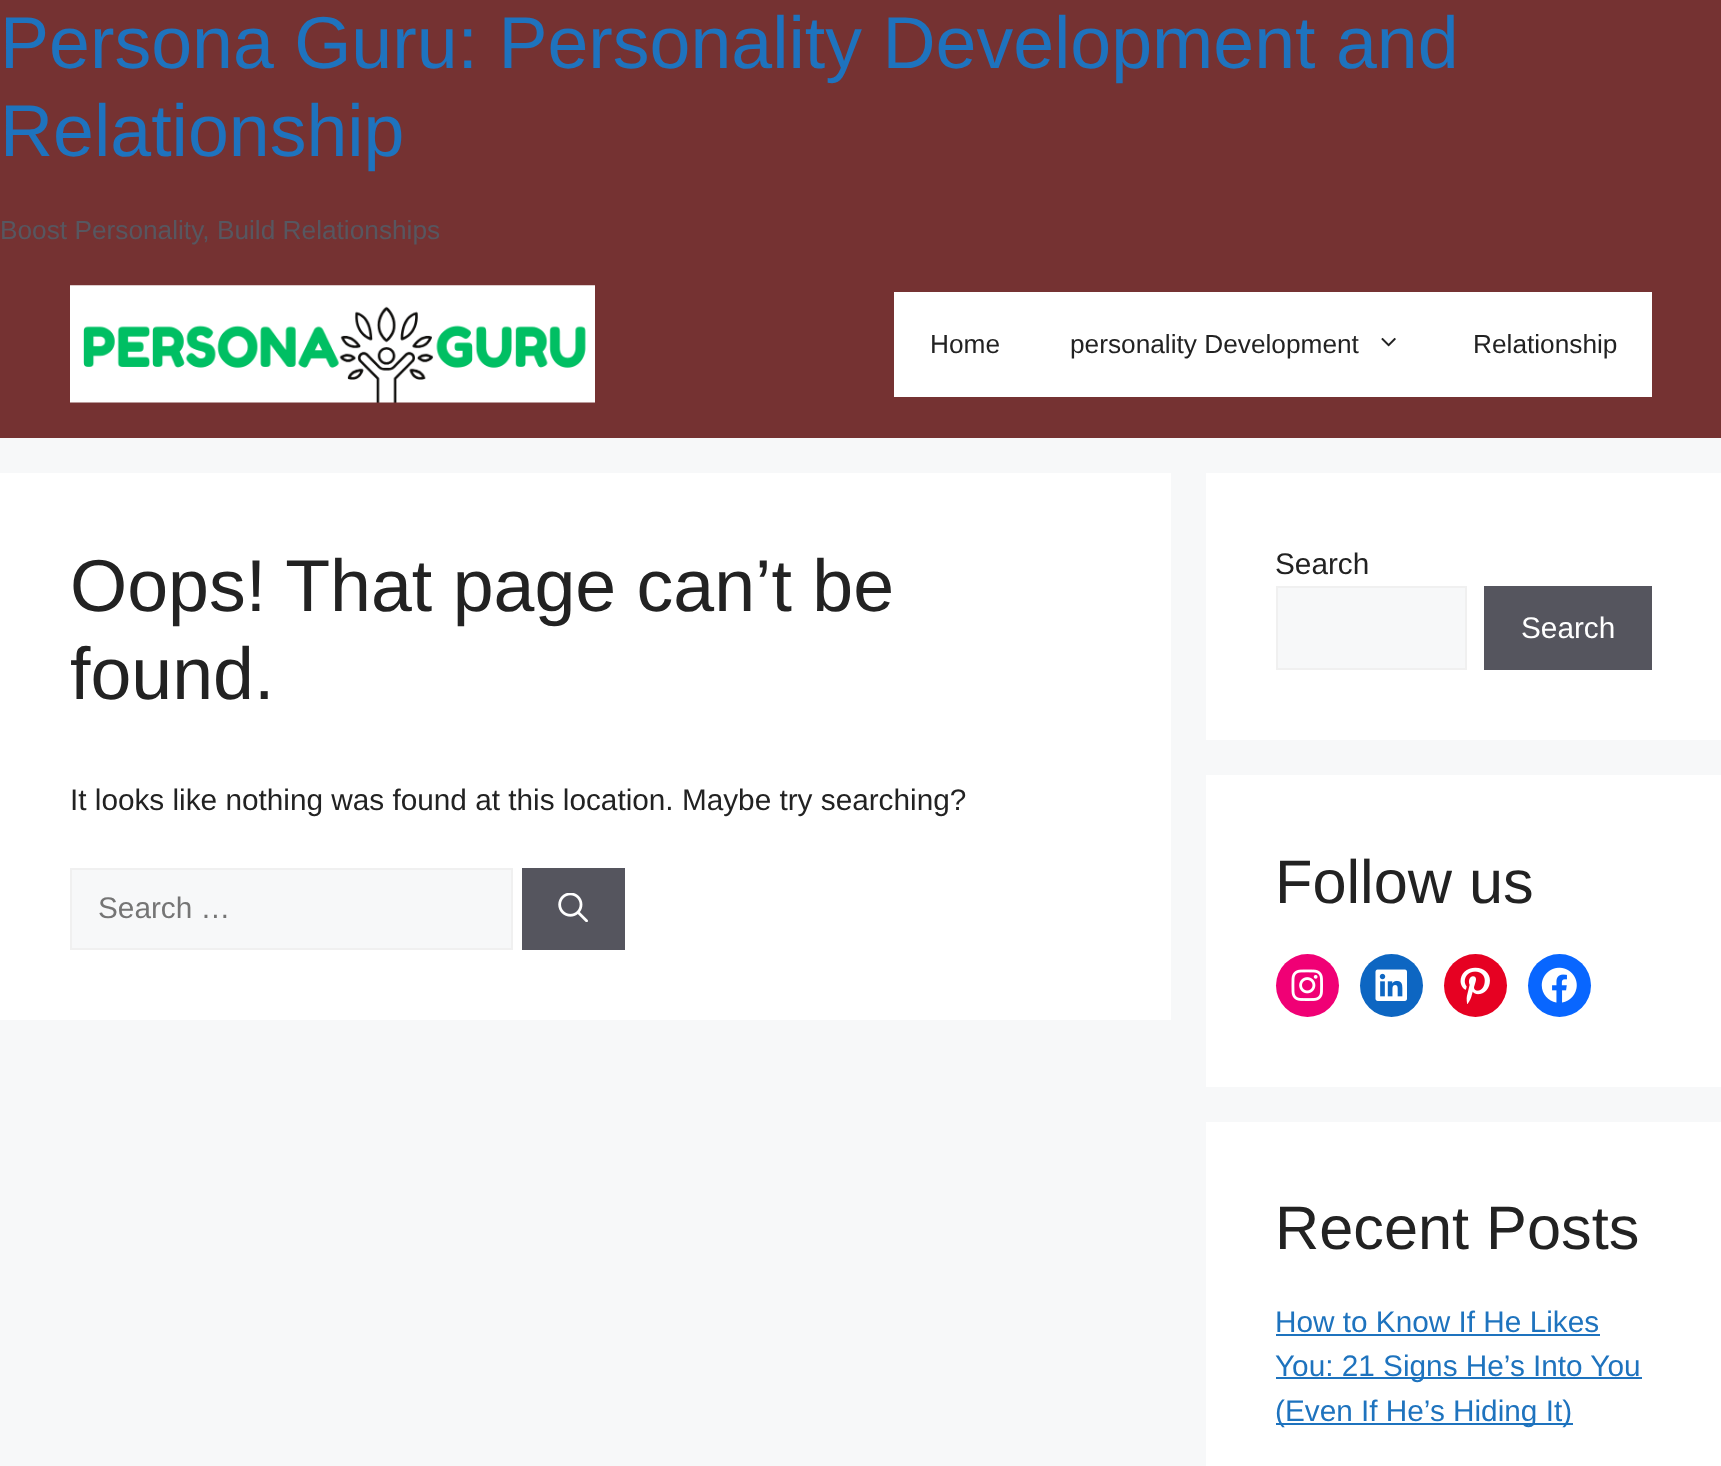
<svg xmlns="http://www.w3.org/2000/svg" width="1721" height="1466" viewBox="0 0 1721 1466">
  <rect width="100%" height="100%" fill="#f7f8f9"/>
  <path d="M0 0h1721v438H0z" fill="#753232"/>
  <image x="70" y="285" width="525" height="118" href="img/1.png"/>
  <path d="M894 292h758v105H894z" fill="#fff"/>
  <image x="1381" y="337" width="15" height="10" href="img/2.png"/>
  <path d="M0 473h1171v547H0z" fill="#fff"/>
  <path d="M71 869h441v80H71z" fill="#f7f8f9" stroke="#f0f0f0" stroke-width="2"/>
  <path d="M522 868h103v82H522z" fill="#55555e"/>
  <image x="558" y="893" width="30" height="29" href="img/3.png"/>
  <path d="M1206 473h515v267H1206z" fill="#fff"/>
  <path d="M1277 587h189v82H1277z" fill="#f7f8f9" stroke="#f0f0f0" stroke-width="2"/>
  <path d="M1484 586h168v84H1484z" fill="#55555e"/>
  <path d="M1206 775h515v312H1206z" fill="#fff"/>
  <circle cx="1307.5" cy="985.5" r="31.5" fill="#f00075"/>
  <image x="1291" y="969" width="32" height="32" href="img/4.png"/>
  <circle cx="1391.5" cy="985.5" r="31.5" fill="#0d66c2"/>
  <image x="1375" y="969" width="32" height="32" href="img/5.png"/>
  <circle cx="1475.5" cy="985.5" r="31.5" fill="#e60122"/>
  <image x="1460" y="967" width="30" height="37" href="img/6.png"/>
  <circle cx="1559.5" cy="985.5" r="31.5" fill="#0866ff"/>
  <image x="1541" y="967" width="36" height="36" href="img/7.png"/>
  <path d="M1206 1122h515v344H1206z" fill="#fff"/>
  <path d="M1276 1334h324v2H1276z" fill="#1e73be"/>
  <path d="M1276 1377h366v2H1276z" fill="#1e73be"/>
  <path d="M1276 1423h297v2H1276z" fill="#1e73be"/>
  <g font-family="Liberation Sans" font-size="73.5" fill="#1e73be">
    <text x="0" y="68">Persona Guru: Personality Development and</text>
    <text x="0" y="156">Relationship</text>
  </g>
  <text x="0" y="239" font-family="Liberation Sans" font-size="26.25" fill="#575760">Boost Personality, Build Relationships</text>
  <g font-family="Liberation Sans" font-size="26.25" fill="#222">
    <text x="930" y="353">Home</text>
    <text x="1070" y="353">personality Development</text>
    <text x="1473" y="353">Relationship</text>
  </g>
  <g font-family="Liberation Sans" font-size="73.5" fill="#222">
    <text x="70" y="611">Oops! That page can’t be</text>
    <text x="70" y="699">found.</text>
  </g>
  <text x="70" y="810" font-family="Liberation Sans" font-size="29.75" fill="#222">It looks like nothing was found at this location. Maybe try searching?</text>
  <text x="98" y="918" font-family="Liberation Sans" font-size="29.75" fill="#757575">Search …</text>
  <text x="1275" y="574" font-family="Liberation Sans" font-size="29.75" fill="#222">Search</text>
  <text x="1521" y="638" font-family="Liberation Sans" font-size="29.75" fill="#fff">Search</text>
  <g font-family="Liberation Sans" font-size="61.25" fill="#222">
    <text x="1275" y="903">Follow us</text>
    <text x="1275" y="1249">Recent Posts</text>
  </g>
  <g font-family="Liberation Sans" font-size="29.75" fill="#1e73be">
    <text x="1275" y="1332">How to Know If He Likes</text>
    <text x="1275" y="1376">You: 21 Signs He’s Into You</text>
    <text x="1275" y="1421">(Even If He’s Hiding It)</text>
  </g>
</svg>
